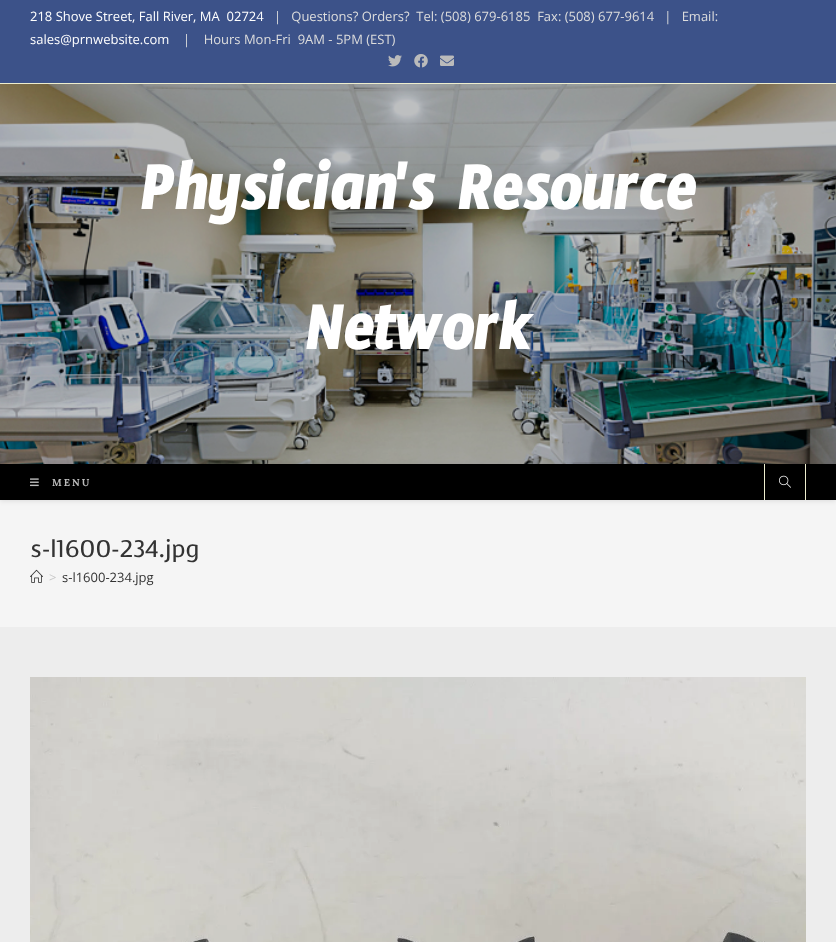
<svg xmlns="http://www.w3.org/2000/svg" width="836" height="942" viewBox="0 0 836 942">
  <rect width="100%" height="100%" fill="#ededed"/>
  <path d="M0 0h836v83H0z" fill="#3c5289"/>
  <path d="M0 83h836v1H0z" fill="#ededce"/>
  <image x="388" y="55" width="14" height="12" href="img/1.png"/>
  <image x="414" y="54" width="14" height="14" href="img/2.png"/>
  <image x="440" y="55" width="14" height="11" href="img/3.png"/>
  <image x="0" y="84" width="836" height="380" href="img/4.png"/>
  <path d="M0 500h836v127H0z" fill="#f5f5f5"/>
  <path d="M0 465h836v36H0z" fill="#0000001a" filter="blur(2.5px)"/>
  <path d="M0 464h836v36H0z" fill="#000"/>
  <image x="30" y="478" width="9" height="9" href="img/5.png"/>
  <path d="M805 464h1v36H805z" fill="#ededce"/>
  <path d="M764 464h1v36H764z" fill="#ededce"/>
  <image x="779" y="475" width="12" height="13" href="img/6.png"/>
  <image x="30" y="569" width="13" height="14" href="img/7.png"/>
  <image x="30" y="677" width="776" height="265" href="img/8.png"/>
  <text x="30" y="21" font-family="Open Sans" font-size="13" fill="#fff" xml:space="preserve">218 Shove Street, Fall River, MA  02724</text>
  <text x="274" y="21" font-family="Open Sans" font-size="13" fill="#ddd" xml:space="preserve">|   Questions? Orders?  Tel: (508) 679-6185  Fax: (508) 677-9614   |   Email:</text>
  <text x="30" y="44" font-family="Open Sans" font-size="13" fill="#fff">sales@prnwebsite.com</text>
  <text x="183" y="44" font-family="Open Sans" font-size="13" fill="#ddd" xml:space="preserve">|    Hours Mon-Fri  9AM - 5PM (EST)</text>
  <g font-family="Timmana" font-size="70" font-weight="bold" fill="#fff">
    <text x="140" y="209">Physician's Resource</text>
    <text x="305" y="349">Network</text>
  </g>
  <text x="52" y="486" font-family="Sumana" font-size="10" font-weight="bold" letter-spacing="2" fill="#bcbcbc">MENU</text>
  <text x="30" y="557" font-family="Voces" font-size="24" fill="#333">s-l1600-234.jpg</text>
  <text x="49" y="582" font-family="Open Sans" font-size="13" fill="#c6c6c6">&gt;</text>
  <text x="62" y="582" font-family="Open Sans" font-size="13" fill="#333">s-l1600-234.jpg</text>
</svg>
